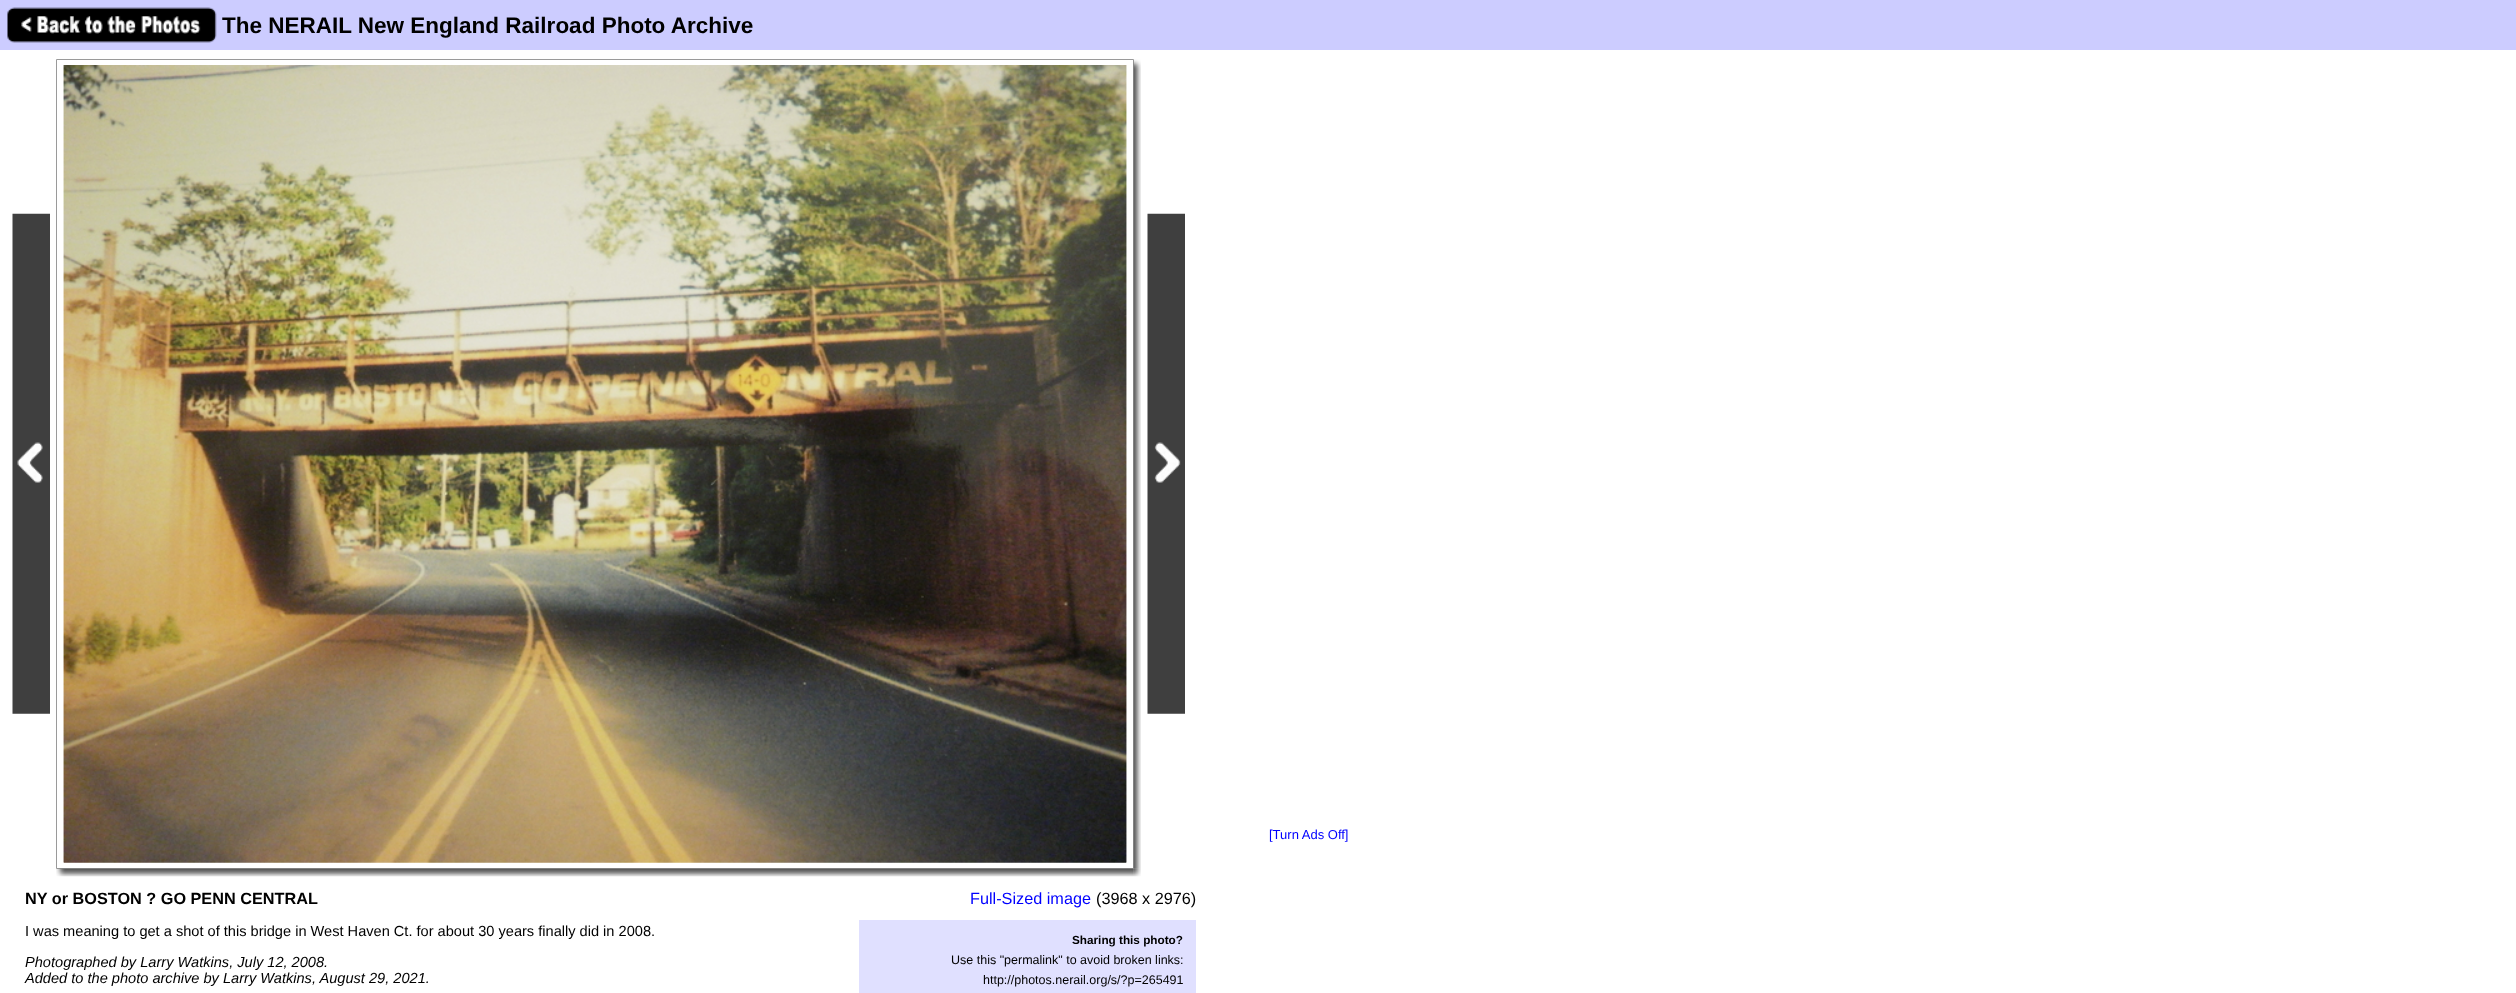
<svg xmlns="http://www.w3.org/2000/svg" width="2516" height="993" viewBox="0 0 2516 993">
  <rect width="100%" height="100%" fill="#fff"/>
  <path d="M0 0h2516v50H0z" fill="#ccf"/>
  <image x="7" y="7" width="210" height="36" href="img/1.png"/>
  <image x="12" y="213" width="38" height="501" href="img/2.png"/>
  <path d="M56.5 59.5h1077v809H56.5z" fill="none" stroke="#9a9a9a"/>
  <image x="63" y="65" width="1064" height="798" href="img/3.png"/>
  <image x="63" y="65" width="1064" height="798" href="img/4.png"/>
  <image x="1133" y="59" width="8" height="810" href="img/5.png"/>
  <image x="1147" y="213" width="38" height="501" href="img/6.png"/>
  <image x="56" y="868" width="1078" height="9" href="img/7.png"/>
  <image x="1133" y="868" width="8" height="9" href="img/8.png"/>
  <path d="M859 920h337v73H859z" fill="#e0e0ff"/>
  <text x="222" y="33" font-family="Liberation Sans" font-size="22.5" font-weight="bold" fill="#000">The NERAIL New England Railroad Photo Archive</text>
  <text x="1269" y="839" font-family="Liberation Sans" font-size="13" fill="#00f">[Turn Ads Off]</text>
  <text x="25" y="904" font-family="Liberation Sans" font-size="16.25" font-weight="bold" fill="#000">NY or BOSTON ? GO PENN CENTRAL</text>
  <text x="25" y="936" font-family="Liberation Sans" font-size="14.6" fill="#000">I was meaning to get a shot of this bridge in West Haven Ct. for about 30 years finally did in 2008.</text>
  <g font-family="Liberation Sans" font-size="14.6" font-style="italic" fill="#000">
    <text x="25" y="967">Photographed by Larry Watkins, July 12, 2008.</text>
    <text x="25" y="983">Added to the photo archive by Larry Watkins, August 29, 2021.</text>
  </g>
  <text x="970" y="904" font-family="Liberation Sans" font-size="16.25" fill="#00f">Full-Sized image</text>
  <text x="1096" y="904" font-family="Liberation Sans" font-size="16.25" fill="#000">(3968 x 2976)</text>
  <text x="1072" y="944" font-family="Liberation Sans" font-size="11.75" font-weight="bold" fill="#000">Sharing this photo?</text>
  <g font-family="Liberation Sans" font-size="12.5" fill="#000">
    <text x="951" y="964">Use this "permalink" to avoid broken links:</text>
    <text x="983" y="984">http://photos.nerail.org/s/?p=265491</text>
  </g>
</svg>
